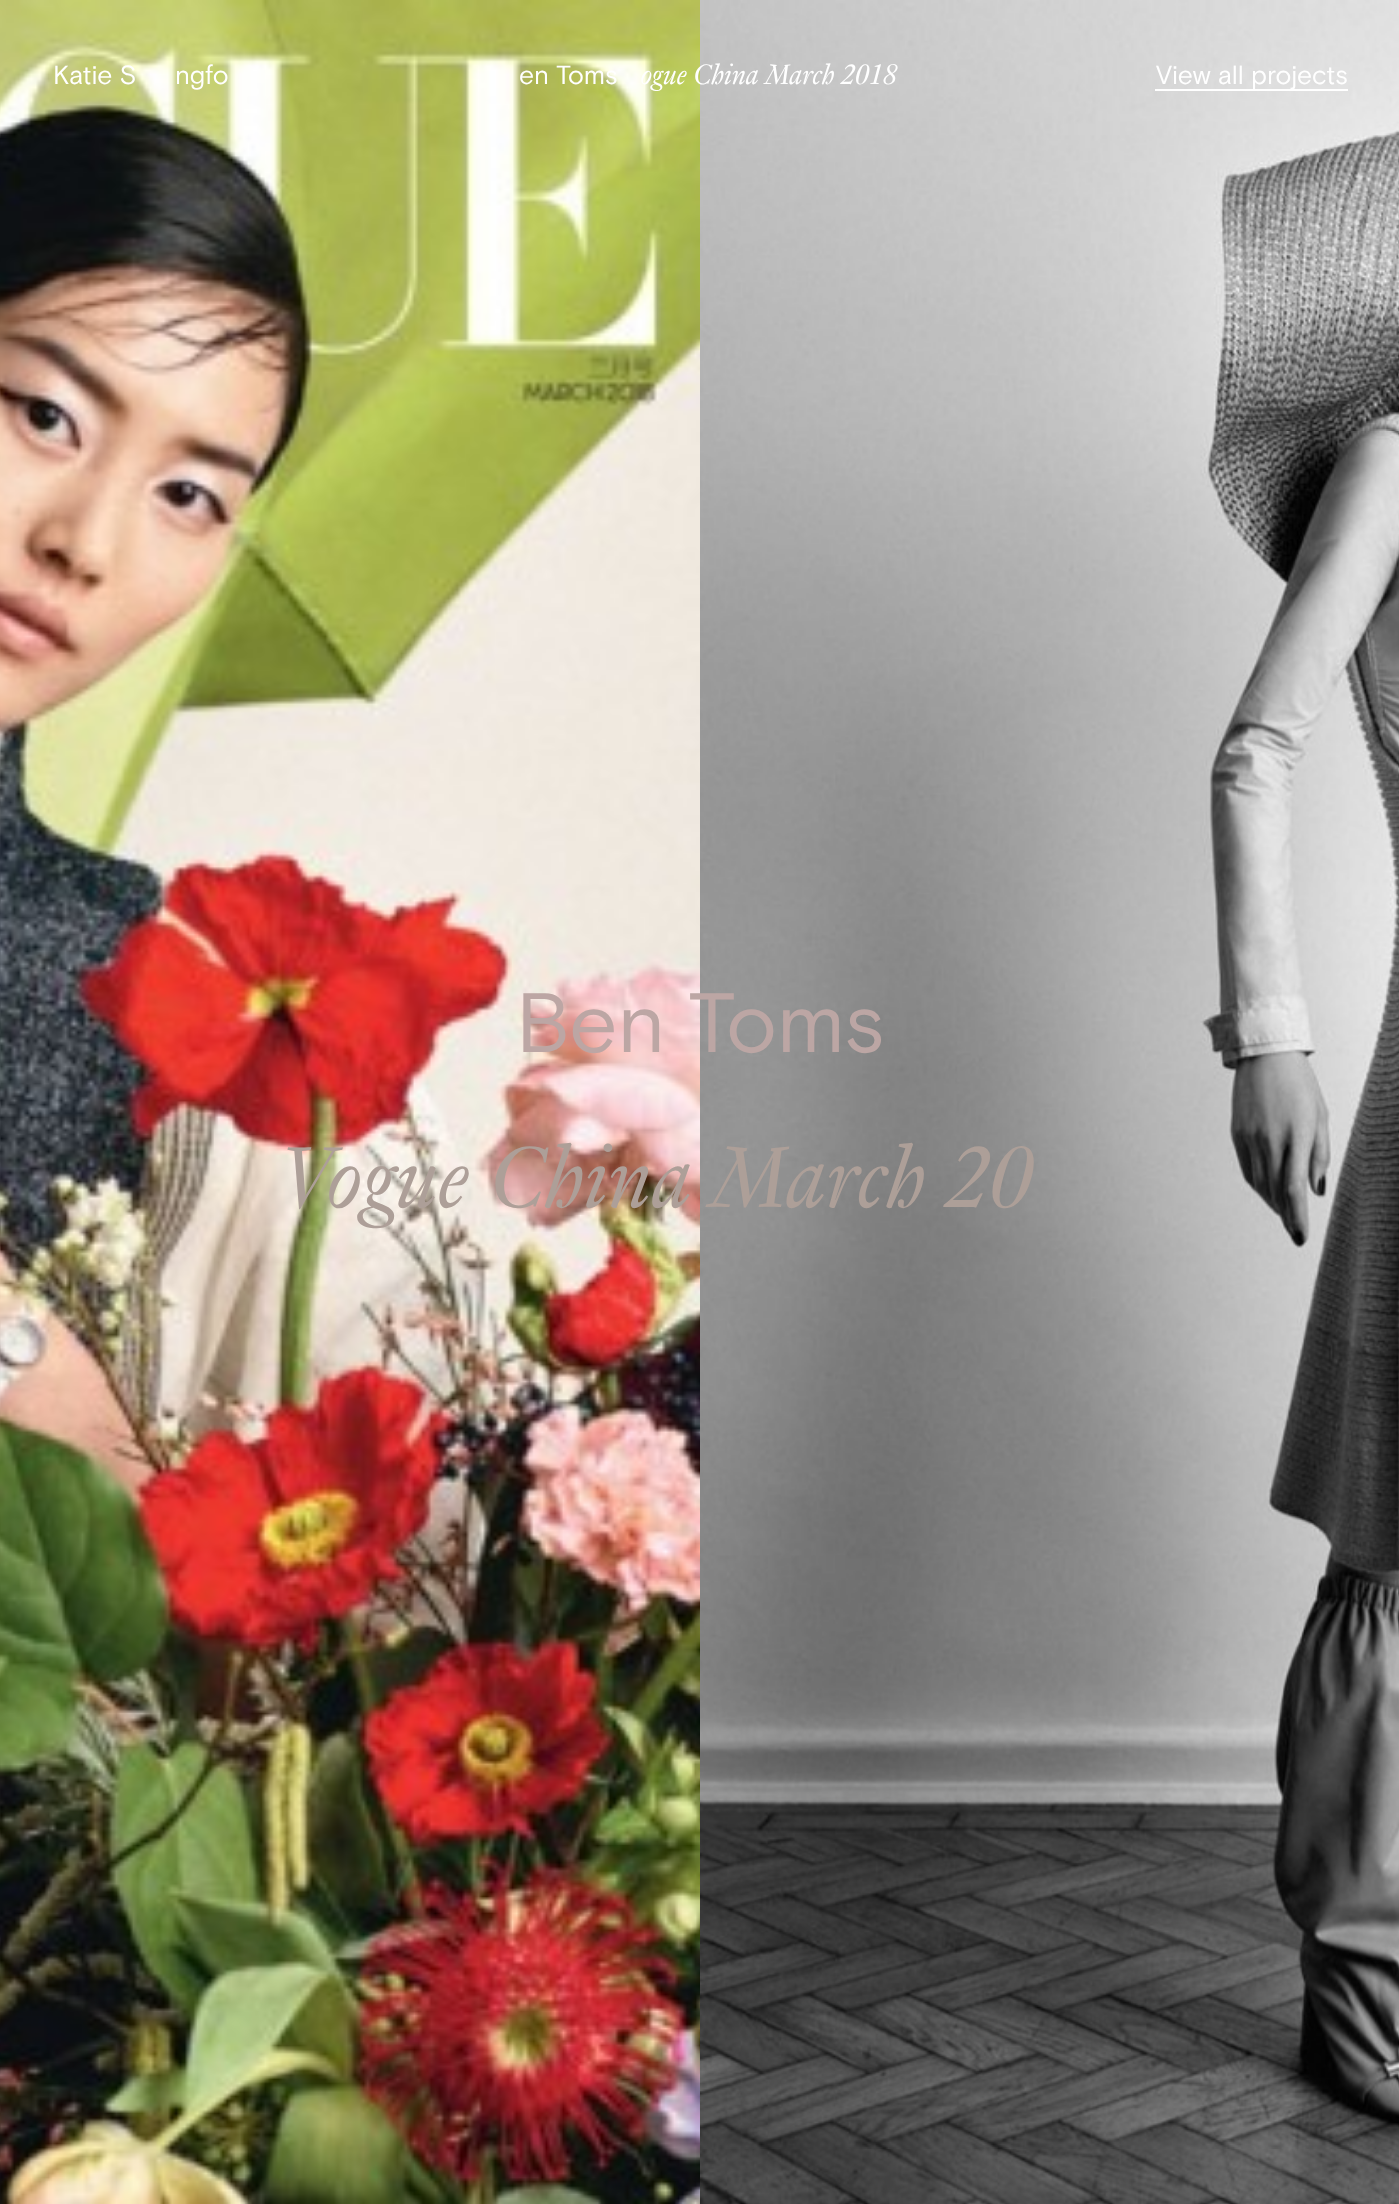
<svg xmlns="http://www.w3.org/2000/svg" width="1399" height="2204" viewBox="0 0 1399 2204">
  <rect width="100%" height="100%" fill="#fff"/>
  <image x="700" y="0" width="699" height="2204" href="img/2.png"/>
  <path d="M1155 89h193v2H1155z" fill="#fff"/>
  <image x="0" y="0" width="700" height="2204" href="img/1.png"/>
  <g font-family="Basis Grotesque" font-size="26.25" fill="#fff">
    <text x="53" y="84">Katie S</text>
    <text x="175" y="84">ngfo</text>
    <text x="519" y="84">en Toms</text>
  </g>
  <text x="641" y="84" font-family="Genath" font-size="30.6" font-style="italic" fill="#fff">ogue China March 2018</text>
  <text x="1156" y="84" font-family="Basis Grotesque" font-size="26.25" fill="#fff">View all projects</text>
  <text x="516" y="1052" font-family="Basis Grotesque" font-size="84" fill="#bca6a4">Ben Toms</text>
  <text x="280" y="1207" font-family="Genath" font-size="94.5" font-style="italic" fill="#ad9f98">Vogue China March 20</text>
</svg>
